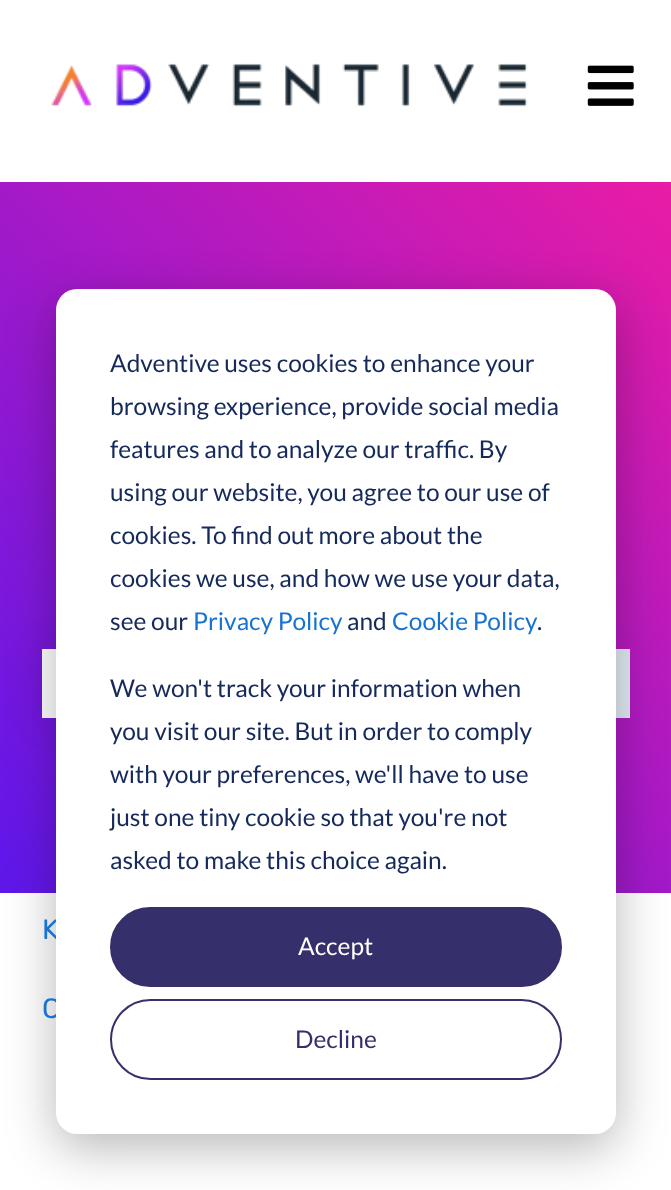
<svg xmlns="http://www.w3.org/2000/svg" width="671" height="1190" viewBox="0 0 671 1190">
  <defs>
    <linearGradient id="g1" gradientUnits="userSpaceOnUse" x1="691" y1="202" x2="-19" y2="873"><stop offset="0" stop-color="#e91ca5"/><stop offset="1" stop-color="#5e17eb"/></linearGradient>
  </defs>
  <rect width="100%" height="100%" fill="#fff"/>
  <image x="51" y="63" width="477" height="44" href="img/1.png"/>
  <image x="587" y="65" width="47" height="41" href="img/2.png"/>
  <path d="M0 182h671v711H0z" fill="url(#g1)"/>
  <path d="M42 651h522v68H42z" fill="#00000014" filter="blur(21px)"/>
  <path d="M42 649h14v69H42z" fill="#fff"/>
  <path d="M616 649h14v69H616z" fill="#e2ebf4"/>
  <rect x="56" y="303" width="560" height="845" rx="21" fill="#00000047" filter="blur(24.5px)"/>
  <g font-family="Rubik" font-size="28" fill="#1773d1">
    <text x="42" y="939">K</text>
    <text x="42" y="1018">C</text>
  </g>
  <rect x="56" y="289" width="560" height="845" rx="21" fill="#fff"/>
  <g font-family="Lato" font-size="24.5" fill="#15295a">
    <text x="110" y="372">Adventive uses cookies to enhance your</text>
    <text x="110" y="415">browsing experience, provide social media</text>
    <text x="110" y="458">features and to analyze our traffic. By</text>
    <text x="110" y="501">using our website, you agree to our use of</text>
    <text x="110" y="544">cookies. To find out more about the</text>
    <text x="110" y="587">cookies we use, and how we use your data,</text>
    <text x="110" y="630">see our</text>
  </g>
  <text x="193" y="630" font-family="Lato" font-size="24.5" fill="#1773d1">Privacy Policy</text>
  <text x="347" y="630" font-family="Lato" font-size="24.5" fill="#15295a">and</text>
  <text x="392" y="630" font-family="Lato" font-size="24.5" fill="#1773d1">Cookie Policy</text>
  <g font-family="Lato" font-size="24.5" fill="#15295a">
    <text x="537" y="630">.</text>
    <text x="110" y="697">We won't track your information when</text>
    <text x="110" y="740">you visit our site. But in order to comply</text>
    <text x="110" y="783">with your preferences, we'll have to use</text>
    <text x="110" y="826">just one tiny cookie so that you're not</text>
    <text x="110" y="869">asked to make this choice again.</text>
  </g>
  <rect x="111" y="908" width="450" height="78" rx="39" fill="#352f6b" stroke="#352f6b" stroke-width="2"/>
  <text x="298" y="955" font-family="Lato" font-size="24.5" fill="#fff">Accept</text>
  <rect x="111" y="1000" width="450" height="79" rx="39.5" fill="none" stroke="#352f6b" stroke-width="2"/>
  <text x="295" y="1048" font-family="Lato" font-size="24.5" fill="#352f6b">Decline</text>
</svg>
